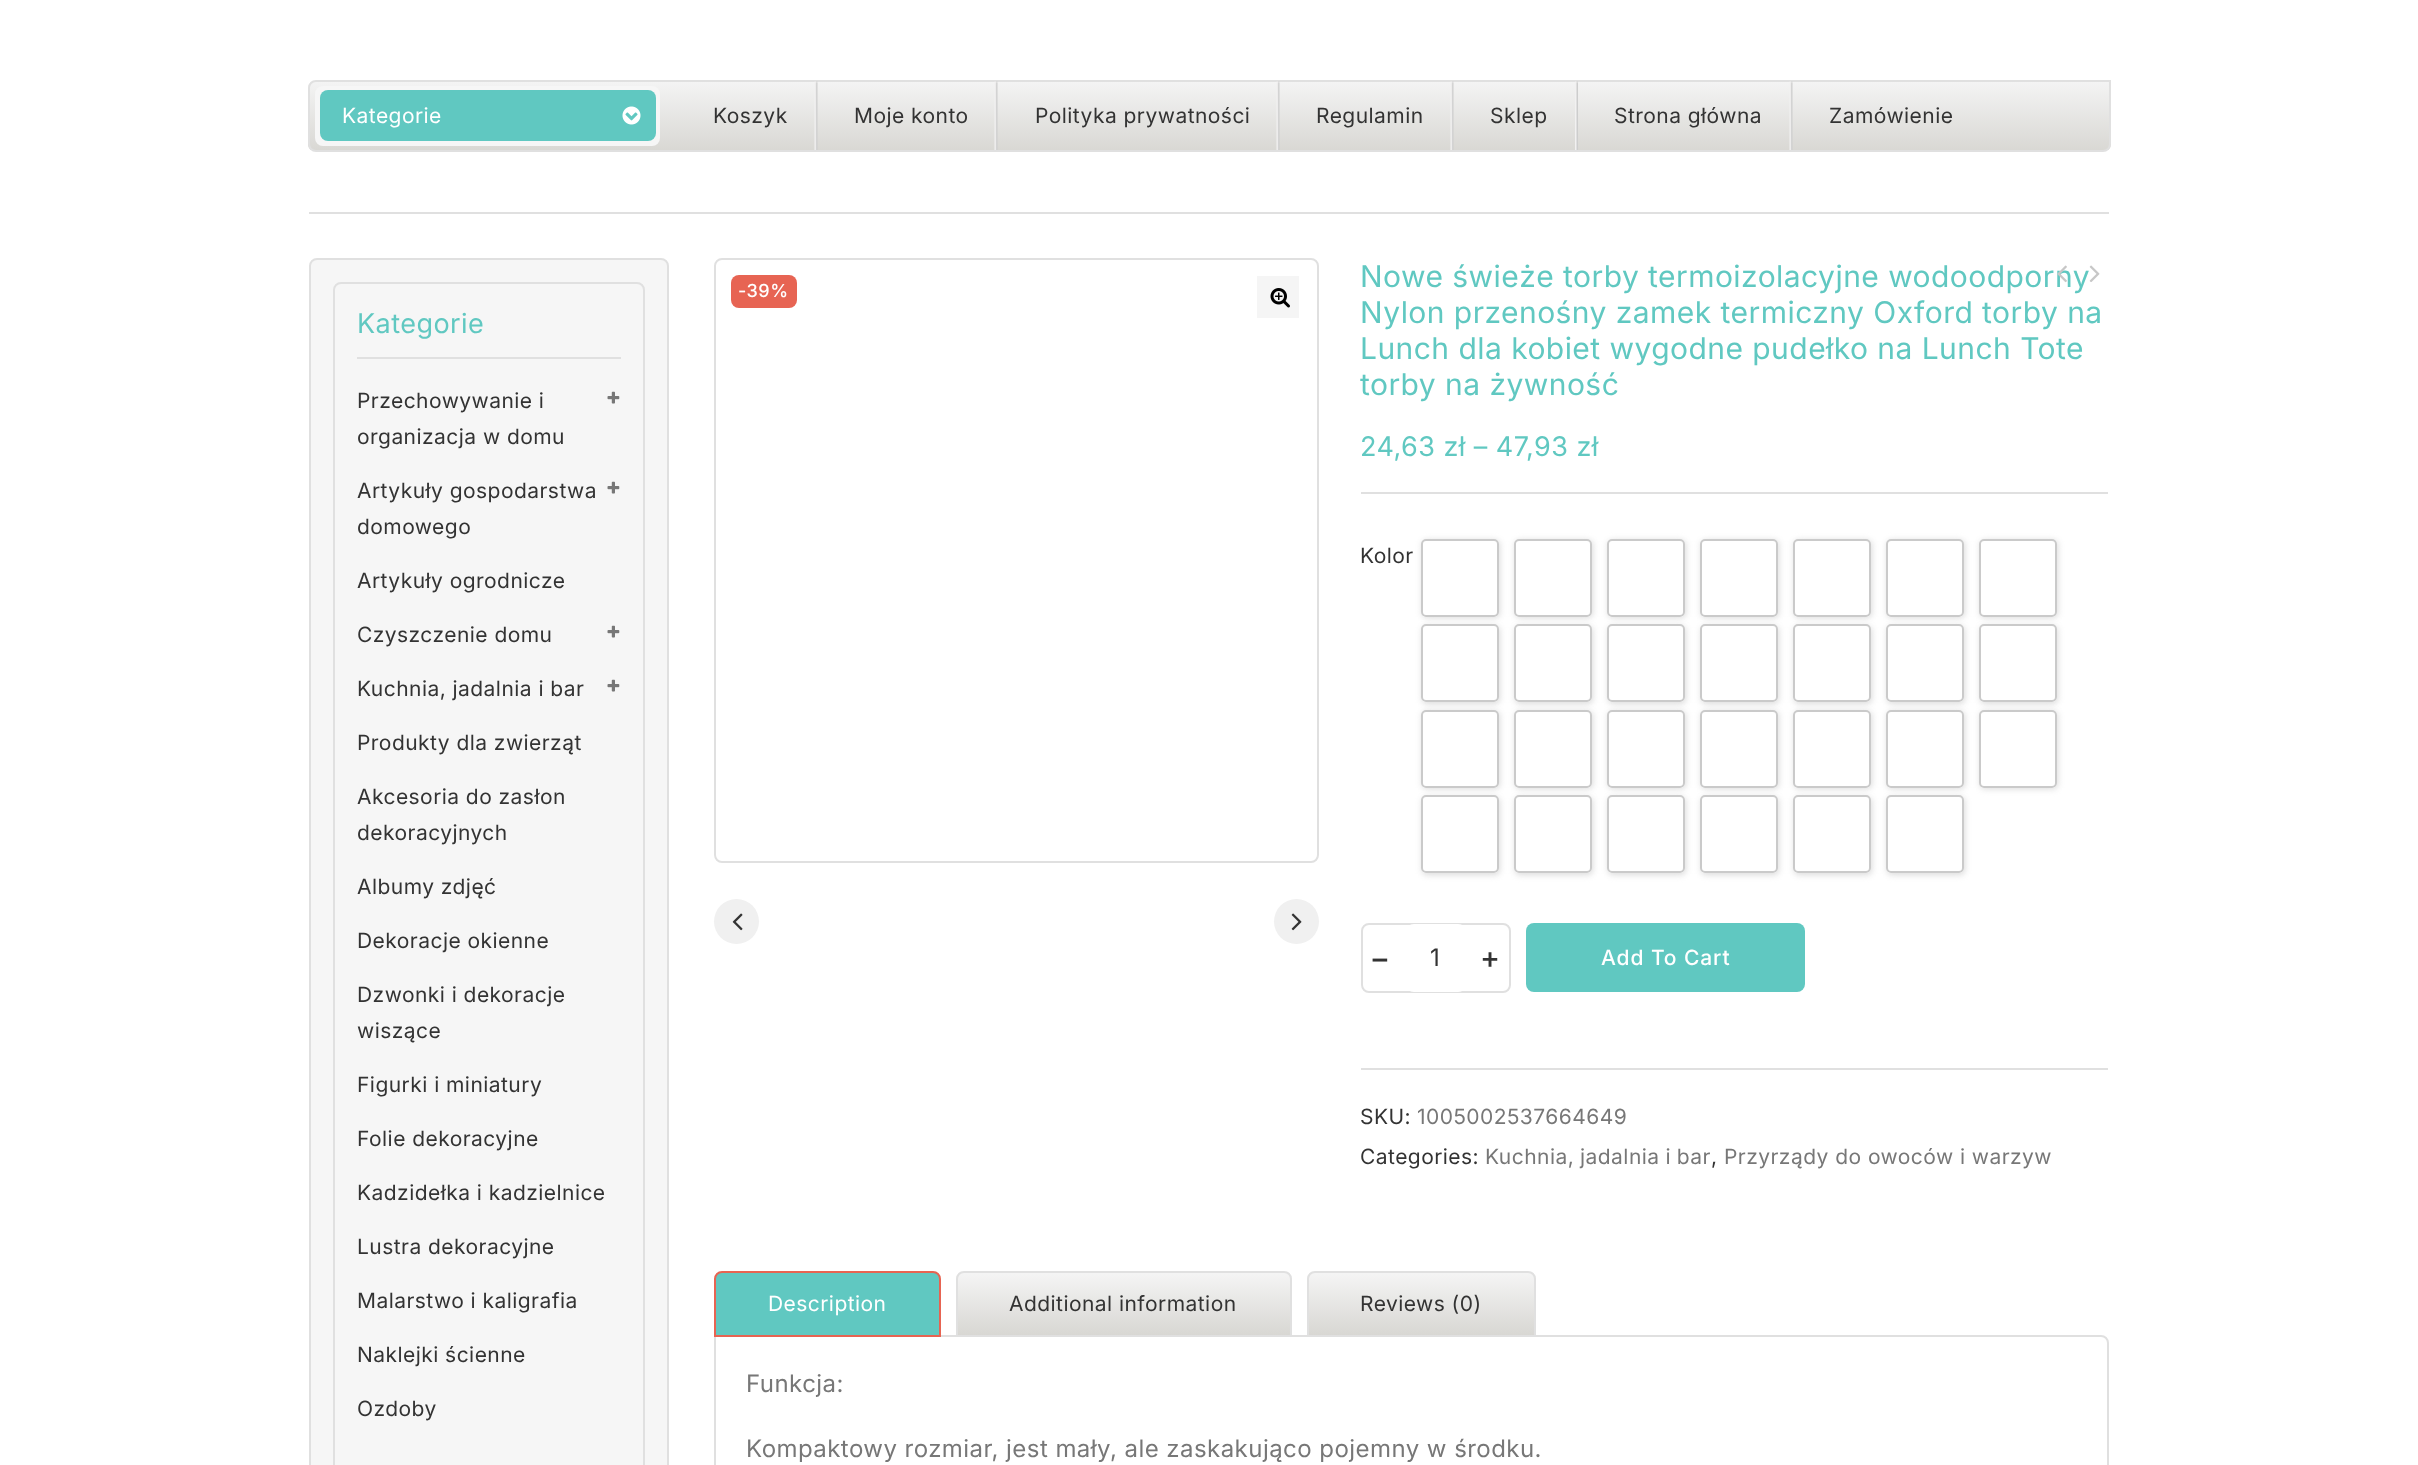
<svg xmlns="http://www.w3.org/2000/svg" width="2418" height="1465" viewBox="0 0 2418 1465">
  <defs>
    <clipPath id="clip1"><path d="M316 80H2111V144C2111 148.5 2107.5 152 2103 152H316C311.5 152 308 148.5 308 144V88C308 83.5 311.5 80 316 80Z"/></clipPath>
    <linearGradient id="g1" gradientUnits="userSpaceOnUse" x1="1209" y1="81" x2="1209" y2="150"><stop offset="0" stop-color="#f4f4f4"/><stop offset="1" stop-color="#d9d8d4"/></linearGradient>
    <clipPath id="clip2"><path d="M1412 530H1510V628H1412ZM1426 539H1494C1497 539 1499 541 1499 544V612C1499 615 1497 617 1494 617H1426C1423 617 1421 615 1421 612V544C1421 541 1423 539 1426 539Z" clip-rule="evenodd"/></clipPath>
    <clipPath id="clip3"><path d="M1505 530H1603V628H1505ZM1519 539H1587C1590 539 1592 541 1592 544V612C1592 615 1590 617 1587 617H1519C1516 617 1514 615 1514 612V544C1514 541 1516 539 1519 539Z" clip-rule="evenodd"/></clipPath>
    <clipPath id="clip4"><path d="M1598 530H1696V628H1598ZM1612 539H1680C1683 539 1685 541 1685 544V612C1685 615 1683 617 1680 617H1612C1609 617 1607 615 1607 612V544C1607 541 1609 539 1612 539Z" clip-rule="evenodd"/></clipPath>
    <clipPath id="clip5"><path d="M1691 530H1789V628H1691ZM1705 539H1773C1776 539 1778 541 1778 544V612C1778 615 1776 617 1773 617H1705C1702 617 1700 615 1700 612V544C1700 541 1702 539 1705 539Z" clip-rule="evenodd"/></clipPath>
    <clipPath id="clip6"><path d="M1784 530H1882V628H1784ZM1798 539H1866C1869 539 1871 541 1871 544V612C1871 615 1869 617 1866 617H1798C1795 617 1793 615 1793 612V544C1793 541 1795 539 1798 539Z" clip-rule="evenodd"/></clipPath>
    <clipPath id="clip7"><path d="M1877 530H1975V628H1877ZM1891 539H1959C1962 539 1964 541 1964 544V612C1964 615 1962 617 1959 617H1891C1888 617 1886 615 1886 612V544C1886 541 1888 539 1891 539Z" clip-rule="evenodd"/></clipPath>
    <clipPath id="clip8"><path d="M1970 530H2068V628H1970ZM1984 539H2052C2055 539 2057 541 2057 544V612C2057 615 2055 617 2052 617H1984C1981 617 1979 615 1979 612V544C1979 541 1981 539 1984 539Z" clip-rule="evenodd"/></clipPath>
    <clipPath id="clip9"><path d="M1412 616H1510V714H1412ZM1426 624H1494C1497 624 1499 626 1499 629V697C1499 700 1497 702 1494 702H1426C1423 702 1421 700 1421 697V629C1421 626 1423 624 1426 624Z" clip-rule="evenodd"/></clipPath>
    <clipPath id="clip10"><path d="M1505 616H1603V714H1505ZM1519 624H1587C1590 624 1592 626 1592 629V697C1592 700 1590 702 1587 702H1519C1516 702 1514 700 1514 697V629C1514 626 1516 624 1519 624Z" clip-rule="evenodd"/></clipPath>
    <clipPath id="clip11"><path d="M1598 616H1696V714H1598ZM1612 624H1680C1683 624 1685 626 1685 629V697C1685 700 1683 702 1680 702H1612C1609 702 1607 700 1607 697V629C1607 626 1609 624 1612 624Z" clip-rule="evenodd"/></clipPath>
    <clipPath id="clip12"><path d="M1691 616H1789V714H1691ZM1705 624H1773C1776 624 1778 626 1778 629V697C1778 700 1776 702 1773 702H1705C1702 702 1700 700 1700 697V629C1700 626 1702 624 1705 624Z" clip-rule="evenodd"/></clipPath>
    <clipPath id="clip13"><path d="M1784 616H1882V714H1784ZM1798 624H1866C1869 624 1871 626 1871 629V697C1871 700 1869 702 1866 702H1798C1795 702 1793 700 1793 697V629C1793 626 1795 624 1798 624Z" clip-rule="evenodd"/></clipPath>
    <clipPath id="clip14"><path d="M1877 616H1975V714H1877ZM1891 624H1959C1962 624 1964 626 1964 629V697C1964 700 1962 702 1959 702H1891C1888 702 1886 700 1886 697V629C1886 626 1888 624 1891 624Z" clip-rule="evenodd"/></clipPath>
    <clipPath id="clip15"><path d="M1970 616H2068V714H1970ZM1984 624H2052C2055 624 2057 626 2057 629V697C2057 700 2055 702 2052 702H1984C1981 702 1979 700 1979 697V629C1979 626 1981 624 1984 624Z" clip-rule="evenodd"/></clipPath>
    <clipPath id="clip16"><path d="M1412 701H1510V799H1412ZM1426 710H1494C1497 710 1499 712 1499 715V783C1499 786 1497 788 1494 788H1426C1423 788 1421 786 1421 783V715C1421 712 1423 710 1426 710Z" clip-rule="evenodd"/></clipPath>
    <clipPath id="clip17"><path d="M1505 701H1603V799H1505ZM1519 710H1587C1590 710 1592 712 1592 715V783C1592 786 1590 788 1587 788H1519C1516 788 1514 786 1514 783V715C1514 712 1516 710 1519 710Z" clip-rule="evenodd"/></clipPath>
    <clipPath id="clip18"><path d="M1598 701H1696V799H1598ZM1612 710H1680C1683 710 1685 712 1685 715V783C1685 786 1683 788 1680 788H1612C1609 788 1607 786 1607 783V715C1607 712 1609 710 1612 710Z" clip-rule="evenodd"/></clipPath>
    <clipPath id="clip19"><path d="M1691 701H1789V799H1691ZM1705 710H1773C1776 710 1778 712 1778 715V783C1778 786 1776 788 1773 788H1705C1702 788 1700 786 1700 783V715C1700 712 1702 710 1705 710Z" clip-rule="evenodd"/></clipPath>
    <clipPath id="clip20"><path d="M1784 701H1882V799H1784ZM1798 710H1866C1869 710 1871 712 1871 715V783C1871 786 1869 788 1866 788H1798C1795 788 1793 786 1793 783V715C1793 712 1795 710 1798 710Z" clip-rule="evenodd"/></clipPath>
    <clipPath id="clip21"><path d="M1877 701H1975V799H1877ZM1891 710H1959C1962 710 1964 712 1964 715V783C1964 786 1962 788 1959 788H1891C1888 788 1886 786 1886 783V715C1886 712 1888 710 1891 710Z" clip-rule="evenodd"/></clipPath>
    <clipPath id="clip22"><path d="M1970 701H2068V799H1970ZM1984 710H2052C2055 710 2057 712 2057 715V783C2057 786 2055 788 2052 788H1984C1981 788 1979 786 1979 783V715C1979 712 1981 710 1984 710Z" clip-rule="evenodd"/></clipPath>
    <clipPath id="clip23"><path d="M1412 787H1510V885H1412ZM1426 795H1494C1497 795 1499 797 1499 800V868C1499 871 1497 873 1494 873H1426C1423 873 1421 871 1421 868V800C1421 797 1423 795 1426 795Z" clip-rule="evenodd"/></clipPath>
    <clipPath id="clip24"><path d="M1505 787H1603V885H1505ZM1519 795H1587C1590 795 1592 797 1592 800V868C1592 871 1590 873 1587 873H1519C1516 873 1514 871 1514 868V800C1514 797 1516 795 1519 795Z" clip-rule="evenodd"/></clipPath>
    <clipPath id="clip25"><path d="M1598 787H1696V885H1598ZM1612 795H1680C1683 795 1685 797 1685 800V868C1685 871 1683 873 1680 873H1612C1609 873 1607 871 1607 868V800C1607 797 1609 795 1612 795Z" clip-rule="evenodd"/></clipPath>
    <clipPath id="clip26"><path d="M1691 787H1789V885H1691ZM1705 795H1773C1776 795 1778 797 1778 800V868C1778 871 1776 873 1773 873H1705C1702 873 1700 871 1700 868V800C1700 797 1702 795 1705 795Z" clip-rule="evenodd"/></clipPath>
    <clipPath id="clip27"><path d="M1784 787H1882V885H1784ZM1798 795H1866C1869 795 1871 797 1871 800V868C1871 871 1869 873 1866 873H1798C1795 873 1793 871 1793 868V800C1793 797 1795 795 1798 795Z" clip-rule="evenodd"/></clipPath>
    <clipPath id="clip28"><path d="M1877 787H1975V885H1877ZM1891 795H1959C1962 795 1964 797 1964 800V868C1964 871 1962 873 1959 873H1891C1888 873 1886 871 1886 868V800C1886 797 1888 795 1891 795Z" clip-rule="evenodd"/></clipPath>
    <clipPath id="clip29"><path d="M964 1271H1284C1288.5 1271 1292 1274.5 1292 1279V1337H956V1279C956 1274.5 959.5 1271 964 1271Z"/></clipPath>
    <linearGradient id="g2" gradientUnits="userSpaceOnUse" x1="1124" y1="1272" x2="1124" y2="1335"><stop offset="0" stop-color="#f5f5f5"/><stop offset="1" stop-color="#d8d7d3"/></linearGradient>
    <clipPath id="clip30"><path d="M1315 1271H1528C1532.5 1271 1536 1274.5 1536 1279V1337H1307V1279C1307 1274.5 1310.5 1271 1315 1271Z"/></clipPath>
    <linearGradient id="g3" gradientUnits="userSpaceOnUse" x1="1421" y1="1272" x2="1421" y2="1335"><stop offset="0" stop-color="#f5f5f5"/><stop offset="1" stop-color="#d8d7d3"/></linearGradient>
  </defs>
  <rect width="100%" height="100%" fill="#fff"/>
  <g clip-path="url(#clip1)">
    <path d="M308 81h1803v69H308z" fill="url(#g1)"/>
  </g>
  <path d="M316 81H2110V144C2110 148 2107 151 2103 151H316C312 151 309 148 309 144V88C309 84 312 81 316 81Z" fill="none" stroke="#e0e0e0" stroke-width="2"/>
  <rect x="315" y="86" width="345" height="60" rx="8" fill="#f6f6f6"/>
  <rect x="320" y="90" width="336" height="51" rx="8" fill="#60c8c1"/>
  <image x="622" y="106" width="19" height="19" href="img/1.png"/>
  <image x="814" y="81" width="4" height="69" href="img/2.png"/>
  <image x="994" y="81" width="4" height="69" href="img/2.png"/>
  <image x="1276" y="81" width="4" height="69" href="img/2.png"/>
  <image x="1450" y="81" width="4" height="69" href="img/2.png"/>
  <image x="1575" y="81" width="3" height="69" href="img/3.png"/>
  <image x="1789" y="81" width="4" height="69" href="img/2.png"/>
  <path d="M309 212h1800v2H309z" fill="#e0e0e0"/>
  <rect x="310" y="259" width="358" height="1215" rx="7" fill="#f6f6f6" stroke="#e0e0e0" stroke-width="2"/>
  <rect x="334" y="283" width="310" height="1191" rx="7" fill="none" stroke="#e0e0e0" stroke-width="2"/>
  <path d="M357 357h264v2H357z" fill="#e0e0e0"/>
  <image x="607" y="391" width="13" height="13" href="img/4.png"/>
  <image x="607" y="481" width="13" height="13" href="img/4.png"/>
  <image x="607" y="625" width="13" height="13" href="img/4.png"/>
  <image x="607" y="679" width="13" height="13" href="img/4.png"/>
  <rect x="715" y="259" width="603" height="603" rx="7" fill="none" stroke="#e0e0e0" stroke-width="2"/>
  <rect x="731" y="275" width="66" height="33" rx="8" fill="#e76453"/>
  <path d="M1257 276h42v42H1257z" fill="#f5f5f5"/>
  <image x="1270" y="288" width="20" height="20" href="img/5.png"/>
  <circle cx="736.5" cy="921.5" r="22.5" fill="#f0f0f0"/>
  <image x="732" y="913" width="11" height="18" href="img/6.png"/>
  <circle cx="1296.5" cy="921.5" r="22.5" fill="#f0f0f0"/>
  <image x="1291" y="913" width="11" height="18" href="img/7.png"/>
  <image x="2089" y="265" width="11" height="17" href="img/9.png"/>
  <path d="M1361 492h747v2H1361z" fill="#e0e0e0"/>
  <g clip-path="url(#clip2)">
    <rect x="1422" y="540" width="78" height="78" rx="5" fill="#dbdbdb" filter="blur(3px)"/>
  </g>
  <rect x="1422" y="540" width="76" height="76" rx="4" fill="none" stroke="#cacaca" stroke-width="2"/>
  <g clip-path="url(#clip3)">
    <rect x="1515" y="540" width="78" height="78" rx="5" fill="#dbdbdb" filter="blur(3px)"/>
  </g>
  <rect x="1515" y="540" width="76" height="76" rx="4" fill="none" stroke="#cacaca" stroke-width="2"/>
  <g clip-path="url(#clip4)">
    <rect x="1608" y="540" width="78" height="78" rx="5" fill="#dbdbdb" filter="blur(3px)"/>
  </g>
  <rect x="1608" y="540" width="76" height="76" rx="4" fill="none" stroke="#cacaca" stroke-width="2"/>
  <g clip-path="url(#clip5)">
    <rect x="1701" y="540" width="78" height="78" rx="5" fill="#dbdbdb" filter="blur(3px)"/>
  </g>
  <rect x="1701" y="540" width="76" height="76" rx="4" fill="none" stroke="#cacaca" stroke-width="2"/>
  <g clip-path="url(#clip6)">
    <rect x="1794" y="540" width="78" height="78" rx="5" fill="#dbdbdb" filter="blur(3px)"/>
  </g>
  <rect x="1794" y="540" width="76" height="76" rx="4" fill="none" stroke="#cacaca" stroke-width="2"/>
  <g clip-path="url(#clip7)">
    <rect x="1887" y="540" width="78" height="78" rx="5" fill="#dbdbdb" filter="blur(3px)"/>
  </g>
  <rect x="1887" y="540" width="76" height="76" rx="4" fill="none" stroke="#cacaca" stroke-width="2"/>
  <g clip-path="url(#clip8)">
    <rect x="1980" y="540" width="78" height="78" rx="5" fill="#dbdbdb" filter="blur(3px)"/>
  </g>
  <rect x="1980" y="540" width="76" height="76" rx="4" fill="none" stroke="#cacaca" stroke-width="2"/>
  <g clip-path="url(#clip9)">
    <rect x="1422" y="626" width="78" height="78" rx="5" fill="#dbdbdb" filter="blur(3px)"/>
  </g>
  <rect x="1422" y="625" width="76" height="76" rx="4" fill="none" stroke="#cacaca" stroke-width="2"/>
  <g clip-path="url(#clip10)">
    <rect x="1515" y="626" width="78" height="78" rx="5" fill="#dbdbdb" filter="blur(3px)"/>
  </g>
  <rect x="1515" y="625" width="76" height="76" rx="4" fill="none" stroke="#cacaca" stroke-width="2"/>
  <g clip-path="url(#clip11)">
    <rect x="1608" y="626" width="78" height="78" rx="5" fill="#dbdbdb" filter="blur(3px)"/>
  </g>
  <rect x="1608" y="625" width="76" height="76" rx="4" fill="none" stroke="#cacaca" stroke-width="2"/>
  <g clip-path="url(#clip12)">
    <rect x="1701" y="626" width="78" height="78" rx="5" fill="#dbdbdb" filter="blur(3px)"/>
  </g>
  <rect x="1701" y="625" width="76" height="76" rx="4" fill="none" stroke="#cacaca" stroke-width="2"/>
  <g clip-path="url(#clip13)">
    <rect x="1794" y="626" width="78" height="78" rx="5" fill="#dbdbdb" filter="blur(3px)"/>
  </g>
  <rect x="1794" y="625" width="76" height="76" rx="4" fill="none" stroke="#cacaca" stroke-width="2"/>
  <g clip-path="url(#clip14)">
    <rect x="1887" y="626" width="78" height="78" rx="5" fill="#dbdbdb" filter="blur(3px)"/>
  </g>
  <rect x="1887" y="625" width="76" height="76" rx="4" fill="none" stroke="#cacaca" stroke-width="2"/>
  <g clip-path="url(#clip15)">
    <rect x="1980" y="626" width="78" height="78" rx="5" fill="#dbdbdb" filter="blur(3px)"/>
  </g>
  <rect x="1980" y="625" width="76" height="76" rx="4" fill="none" stroke="#cacaca" stroke-width="2"/>
  <g clip-path="url(#clip16)">
    <rect x="1422" y="711" width="78" height="78" rx="5" fill="#dbdbdb" filter="blur(3px)"/>
  </g>
  <rect x="1422" y="711" width="76" height="76" rx="4" fill="none" stroke="#cacaca" stroke-width="2"/>
  <g clip-path="url(#clip17)">
    <rect x="1515" y="711" width="78" height="78" rx="5" fill="#dbdbdb" filter="blur(3px)"/>
  </g>
  <rect x="1515" y="711" width="76" height="76" rx="4" fill="none" stroke="#cacaca" stroke-width="2"/>
  <g clip-path="url(#clip18)">
    <rect x="1608" y="711" width="78" height="78" rx="5" fill="#dbdbdb" filter="blur(3px)"/>
  </g>
  <rect x="1608" y="711" width="76" height="76" rx="4" fill="none" stroke="#cacaca" stroke-width="2"/>
  <g clip-path="url(#clip19)">
    <rect x="1701" y="711" width="78" height="78" rx="5" fill="#dbdbdb" filter="blur(3px)"/>
  </g>
  <rect x="1701" y="711" width="76" height="76" rx="4" fill="none" stroke="#cacaca" stroke-width="2"/>
  <g clip-path="url(#clip20)">
    <rect x="1794" y="711" width="78" height="78" rx="5" fill="#dbdbdb" filter="blur(3px)"/>
  </g>
  <rect x="1794" y="711" width="76" height="76" rx="4" fill="none" stroke="#cacaca" stroke-width="2"/>
  <g clip-path="url(#clip21)">
    <rect x="1887" y="711" width="78" height="78" rx="5" fill="#dbdbdb" filter="blur(3px)"/>
  </g>
  <rect x="1887" y="711" width="76" height="76" rx="4" fill="none" stroke="#cacaca" stroke-width="2"/>
  <g clip-path="url(#clip22)">
    <rect x="1980" y="711" width="78" height="78" rx="5" fill="#dbdbdb" filter="blur(3px)"/>
  </g>
  <rect x="1980" y="711" width="76" height="76" rx="4" fill="none" stroke="#cacaca" stroke-width="2"/>
  <g clip-path="url(#clip23)">
    <rect x="1422" y="797" width="78" height="78" rx="5" fill="#dbdbdb" filter="blur(3px)"/>
  </g>
  <rect x="1422" y="796" width="76" height="76" rx="4" fill="none" stroke="#cacaca" stroke-width="2"/>
  <g clip-path="url(#clip24)">
    <rect x="1515" y="797" width="78" height="78" rx="5" fill="#dbdbdb" filter="blur(3px)"/>
  </g>
  <rect x="1515" y="796" width="76" height="76" rx="4" fill="none" stroke="#cacaca" stroke-width="2"/>
  <g clip-path="url(#clip25)">
    <rect x="1608" y="797" width="78" height="78" rx="5" fill="#dbdbdb" filter="blur(3px)"/>
  </g>
  <rect x="1608" y="796" width="76" height="76" rx="4" fill="none" stroke="#cacaca" stroke-width="2"/>
  <g clip-path="url(#clip26)">
    <rect x="1701" y="797" width="78" height="78" rx="5" fill="#dbdbdb" filter="blur(3px)"/>
  </g>
  <rect x="1701" y="796" width="76" height="76" rx="4" fill="none" stroke="#cacaca" stroke-width="2"/>
  <g clip-path="url(#clip27)">
    <rect x="1794" y="797" width="78" height="78" rx="5" fill="#dbdbdb" filter="blur(3px)"/>
  </g>
  <rect x="1794" y="796" width="76" height="76" rx="4" fill="none" stroke="#cacaca" stroke-width="2"/>
  <g clip-path="url(#clip28)">
    <rect x="1887" y="797" width="78" height="78" rx="5" fill="#dbdbdb" filter="blur(3px)"/>
  </g>
  <rect x="1887" y="796" width="76" height="76" rx="4" fill="none" stroke="#cacaca" stroke-width="2"/>
  <rect x="1362" y="924" width="148" height="68" rx="7" fill="none" stroke="#e0e0e0" stroke-width="2"/>
  <rect x="1406" y="924" width="60" height="68" rx="8" fill="#fff"/>
  <rect x="1526" y="923" width="279" height="69" rx="8" fill="#60c8c1"/>
  <path d="M1361 1068h747v2H1361z" fill="#e0e0e0"/>
  <path d="M715 1336H2101C2105 1336 2108 1339 2108 1343V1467C2108 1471 2105 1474 2101 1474H722C718 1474 715 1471 715 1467Z" fill="none" stroke="#e0e0e0" stroke-width="2"/>
  <path d="M722 1272H933C937 1272 940 1275 940 1279V1336H715V1279C715 1275 718 1272 722 1272Z" fill="#60c8c1" stroke="#e76452" stroke-width="2"/>
  <g clip-path="url(#clip29)">
    <path d="M956 1272h336v63H956z" fill="url(#g2)"/>
  </g>
  <path d="M964 1272H1284C1288 1272 1291 1275 1291 1279V1336H957V1279C957 1275 960 1272 964 1272Z" fill="none" stroke="#e0e0e0" stroke-width="2"/>
  <g clip-path="url(#clip30)">
    <path d="M1307 1272h229v63H1307z" fill="url(#g3)"/>
  </g>
  <path d="M1315 1272H1528C1532 1272 1535 1275 1535 1279V1336H1308V1279C1308 1275 1311 1272 1315 1272Z" fill="none" stroke="#e0e0e0" stroke-width="2"/>
  <text x="342" y="123" font-family="Inter" font-size="21" letter-spacing="0.45" fill="#fff">Kategorie</text>
  <g font-family="Inter" font-size="21" letter-spacing="0.45" fill="#333">
    <text x="713" y="123">Koszyk</text>
    <text x="854" y="123">Moje konto</text>
    <text x="1035" y="123">Polityka prywatności</text>
    <text x="1316" y="123">Regulamin</text>
    <text x="1490" y="123">Sklep</text>
    <text x="1614" y="123">Strona główna</text>
    <text x="1829" y="123">Zamówienie</text>
  </g>
  <text x="357" y="333" font-family="Inter" font-size="27" letter-spacing="0.45" fill="#60c8c1">Kategorie</text>
  <g font-family="Inter" font-size="21" letter-spacing="0.45" fill="#333">
    <text x="357" y="408">Przechowywanie i</text>
    <text x="357" y="444">organizacja w domu</text>
    <text x="357" y="498">Artykuły gospodarstwa</text>
    <text x="357" y="534">domowego</text>
    <text x="357" y="588">Artykuły ogrodnicze</text>
    <text x="357" y="642">Czyszczenie domu</text>
    <text x="357" y="696">Kuchnia, jadalnia i bar</text>
    <text x="357" y="750">Produkty dla zwierząt</text>
    <text x="357" y="804">Akcesoria do zasłon</text>
    <text x="357" y="840">dekoracyjnych</text>
    <text x="357" y="894">Albumy zdjęć</text>
    <text x="357" y="948">Dekoracje okienne</text>
    <text x="357" y="1002">Dzwonki i dekoracje</text>
    <text x="357" y="1038">wiszące</text>
    <text x="357" y="1092">Figurki i miniatury</text>
    <text x="357" y="1146">Folie dekoracyjne</text>
    <text x="357" y="1200">Kadzidełka i kadzielnice</text>
    <text x="357" y="1254">Lustra dekoracyjne</text>
    <text x="357" y="1308">Malarstwo i kaligrafia</text>
    <text x="357" y="1362">Naklejki ścienne</text>
    <text x="357" y="1416">Ozdoby</text>
  </g>
  <text x="738" y="297" font-family="Inter" font-size="18" font-weight="500" letter-spacing="0.45" fill="#fff">-39%</text>
  <g font-family="Inter" font-size="30" letter-spacing="0.45" fill="#60c8c1">
    <text x="1360" y="287">Nowe świeże torby termoizolacyjne wodoodporny</text>
    <text x="1360" y="323">Nylon przenośny zamek termiczny Oxford torby na</text>
    <text x="1360" y="359">Lunch dla kobiet wygodne pudełko na Lunch Tote</text>
    <text x="1360" y="395">torby na żywność</text>
  </g>
  <image x="2057" y="265" width="10" height="18" href="img/8.png"/>
  <text x="1360" y="456" font-family="Inter" font-size="27" letter-spacing="0.45" fill="#60c8c1">24,63 zł – 47,93 zł</text>
  <text x="1360" y="563" font-family="Inter" font-size="21" letter-spacing="0.45" fill="#333">Kolor</text>
  <text x="1369" y="975" font-family="Inter" font-size="48" font-weight="300" letter-spacing="0.9" fill="#333">-</text>
  <text x="1430" y="966" font-family="Inter" font-size="24" fill="#333">1</text>
  <text x="1480" y="968" font-family="Inter" font-size="30" font-weight="500" letter-spacing="0.9" fill="#333">+</text>
  <text x="1601" y="965" font-family="Inter" font-size="21" font-weight="500" letter-spacing="0.9" fill="#fff">Add To Cart</text>
  <text x="1360" y="1124" font-family="Inter" font-size="21" letter-spacing="0.45" fill="#333">SKU:</text>
  <text x="1417" y="1124" font-family="Inter" font-size="21" letter-spacing="0.45" fill="#777">1005002537664649</text>
  <text x="1360" y="1164" font-family="Inter" font-size="21" letter-spacing="0.45" fill="#333">Categories:</text>
  <text x="1485" y="1164" word-spacing="-0.5" font-family="Inter" font-size="21" letter-spacing="0.45" fill="#777">Kuchnia, jadalnia i bar</text>
  <text x="1711" y="1164" font-family="Inter" font-size="21" letter-spacing="0.45" fill="#333">,</text>
  <text x="1724" y="1164" font-family="Inter" font-size="21" letter-spacing="0.45" fill="#777">Przyrządy do owoców i warzyw</text>
  <text x="768" y="1311" font-family="Inter" font-size="21" letter-spacing="0.45" fill="#fff">Description</text>
  <g font-family="Inter" font-size="21" letter-spacing="0.45" fill="#333">
    <text x="1009" y="1311">Additional information</text>
    <text x="1360" y="1311">Reviews (0)</text>
  </g>
  <g font-family="Inter" font-size="24" letter-spacing="0.45" fill="#777">
    <text x="746" y="1392">Funkcja:</text>
    <text x="746" y="1457">Kompaktowy rozmiar, jest mały, ale zaskakująco pojemny w środku.</text>
  </g>
</svg>
